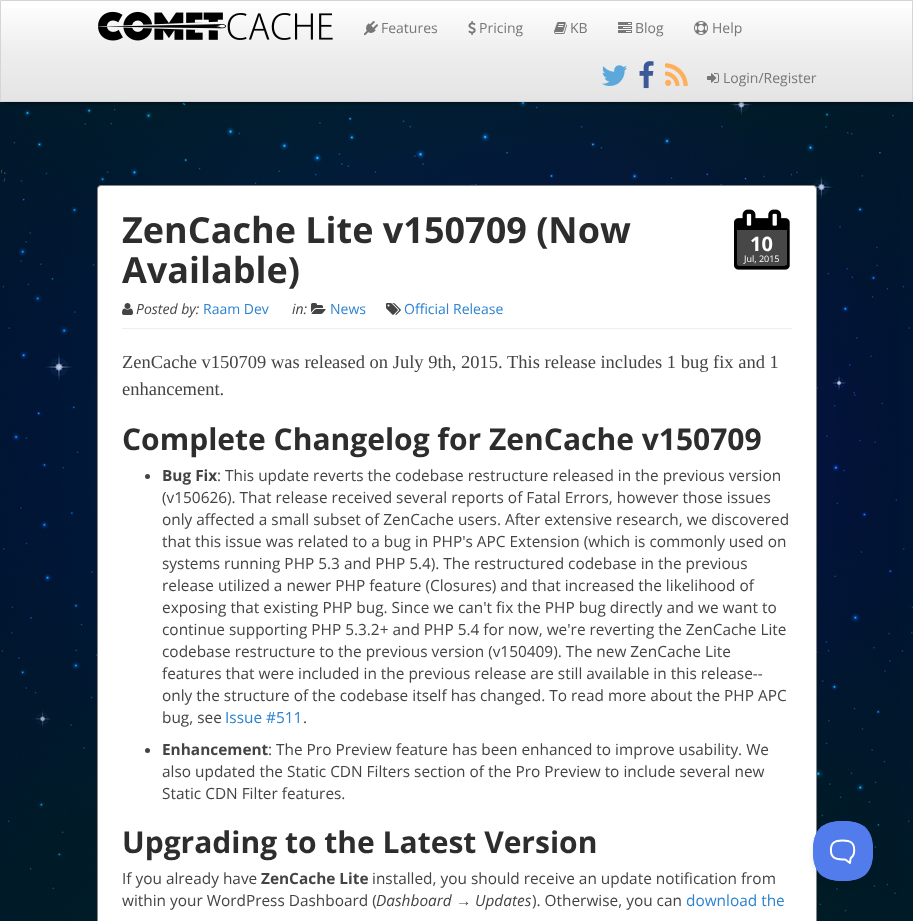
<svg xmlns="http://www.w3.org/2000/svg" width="913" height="921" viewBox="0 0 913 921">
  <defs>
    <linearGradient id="g1" gradientUnits="userSpaceOnUse" x1="457" y1="1" x2="457" y2="101"><stop offset="0" stop-color="#fff"/><stop offset="0.5" stop-color="#eee"/><stop offset="1" stop-color="#e4e4e4"/></linearGradient>
  </defs>
  <rect width="100%" height="100%" fill="#fff"/>
  <image x="0" y="102" width="913" height="819" href="img/1.png"/>
  <path d="M4 10h905v94H4z" fill="#0000004d" filter="blur(1px)"/>
  <path d="M1 8h911v93H1z" fill="url(#g1)"/>
  <path d="M0.5 0.5h912v101H0.5z" fill="none" stroke="#d5d5d5"/>
  <image x="98" y="11" width="235" height="30" href="img/2.png"/>
  <image x="364" y="21" width="14" height="14" href="img/3.png"/>
  <image x="468" y="21" width="8" height="14" href="img/4.png"/>
  <image x="554" y="22" width="13" height="12" href="img/5.png"/>
  <image x="618" y="22" width="14" height="11" href="img/6.png"/>
  <image x="694" y="21" width="14" height="14" href="img/7.png"/>
  <image x="602" y="65" width="25" height="21" href="img/8.png"/>
  <image x="639" y="61" width="15" height="28" href="img/9.png"/>
  <image x="665" y="63" width="23" height="23" href="img/10.png"/>
  <image x="707" y="73" width="12" height="10" href="img/11.png"/>
  <rect x="97.5" y="185.5" width="719" height="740" rx="3.5" fill="#fff" stroke="#848484"/>
  <path d="M122 328h670v1H122z" fill="#eee"/>
  <image x="734" y="209" width="56" height="61" href="img/12.png"/>
  <path d="M737 230h50v35H737z" fill="#474747"/>
  <image x="122" y="303" width="11" height="12" href="img/13.png"/>
  <image x="311" y="303" width="15" height="11" href="img/14.png"/>
  <image x="386" y="303" width="15" height="12" href="img/15.png"/>
  <circle cx="147.5" cy="476.5" r="2.5" fill="#444"/>
  <circle cx="147.5" cy="750.5" r="2.5" fill="#444"/>
  <rect x="813" y="825" width="60" height="60" rx="30" fill="#0000001a" filter="blur(3.5px)"/>
  <image x="813" y="821" width="60" height="60" href="img/16.png"/>
  <g font-family="Open Sans" font-size="14" fill="#777">
    <text x="381" y="33">Features</text>
    <text x="479" y="33">Pricing</text>
    <text x="570" y="33">KB</text>
    <text x="635" y="33">Blog</text>
    <text x="712" y="33">Help</text>
    <text x="723" y="83">Login/Register</text>
  </g>
  <text x="0" y="180" font-family="Open Sans" font-size="14" fill="#444">';</text>
  <g font-family="Open Sans" font-size="36" font-weight="bold" fill="#2d2d2d">
    <text x="122" y="243">ZenCache Lite v150709 (Now</text>
    <text x="122" y="283">Available)</text>
  </g>
  <text x="750" y="251" font-family="Open Sans" font-size="20" font-weight="bold" fill="#fff">10</text>
  <text x="744" y="262" font-family="Open Sans" font-size="9" fill="#fff">Jul, 2015</text>
  <text x="136" y="314" font-family="Open Sans" font-size="14" font-style="italic" fill="#444">Posted by:</text>
  <text x="203" y="314" font-family="Open Sans" font-size="14" fill="#2d83cf">Raam Dev</text>
  <text x="292" y="314" font-family="Open Sans" font-size="14" font-style="italic" fill="#444">in:</text>
  <g font-family="Open Sans" font-size="14" fill="#2d83cf">
    <text x="330" y="314">News</text>
    <text x="404" y="314">Official Release</text>
  </g>
  <g font-family="Liberation Serif" font-size="18.5" fill="#444">
    <text x="122" y="368">ZenCache v150709 was released on July 9th, 2015. This release includes 1 bug fix and 1</text>
    <text x="122" y="395">enhancement.</text>
  </g>
  <text x="122" y="450" font-family="Open Sans" font-size="30" font-weight="bold" fill="#2d2d2d">Complete Changelog for ZenCache v150709</text>
  <text x="162" y="481" font-family="Open Sans" font-size="15.4" font-weight="bold" fill="#444">Bug Fix</text>
  <g font-family="Open Sans" font-size="15.4" fill="#444">
    <text x="217" y="481">: This update reverts the codebase restructure released in the previous version</text>
    <text x="162" y="503">(v150626). That release received several reports of Fatal Errors, however those issues</text>
    <text x="162" y="525">only affected a small subset of ZenCache users. After extensive research, we discovered</text>
    <text x="162" y="547">that this issue was related to a bug in PHP's APC Extension (which is commonly used on</text>
    <text x="162" y="569">systems running PHP 5.3 and PHP 5.4). The restructured codebase in the previous</text>
    <text x="162" y="591">release utilized a newer PHP feature (Closures) and that increased the likelihood of</text>
    <text x="162" y="613">exposing that existing PHP bug. Since we can't fix the PHP bug directly and we want to</text>
    <text x="162" y="635">continue supporting PHP 5.3.2+ and PHP 5.4 for now, we're reverting the ZenCache Lite</text>
    <text x="162" y="657">codebase restructure to the previous version (v150409). The new ZenCache Lite</text>
    <text x="162" y="679">features that were included in the previous release are still available in this release--</text>
    <text x="162" y="701">only the structure of the codebase itself has changed. To read more about the PHP APC</text>
    <text x="162" y="723">bug, see</text>
  </g>
  <text x="225" y="723" font-family="Open Sans" font-size="15.4" fill="#2d83cf">Issue #511</text>
  <text x="303" y="723" font-family="Open Sans" font-size="15.4" fill="#444">.</text>
  <text x="162" y="755" font-family="Open Sans" font-size="15.4" font-weight="bold" fill="#444">Enhancement</text>
  <g font-family="Open Sans" font-size="15.4" fill="#444">
    <text x="268" y="755">: The Pro Preview feature has been enhanced to improve usability. We</text>
    <text x="162" y="777">also updated the Static CDN Filters section of the Pro Preview to include several new</text>
    <text x="162" y="799">Static CDN Filter features.</text>
  </g>
  <text x="122" y="853" font-family="Open Sans" font-size="30" font-weight="bold" fill="#2d2d2d">Upgrading to the Latest Version</text>
  <text x="122" y="884" font-family="Open Sans" font-size="15.4" fill="#444">If you already have</text>
  <text x="261" y="884" font-family="Open Sans" font-size="15.4" font-weight="bold" fill="#444">ZenCache Lite</text>
  <g font-family="Open Sans" font-size="15.4" fill="#444">
    <text x="372" y="884">installed, you should receive an update notification from</text>
    <text x="122" y="906">within your WordPress Dashboard (</text>
  </g>
  <text x="376" y="906" font-family="Open Sans" font-size="15.4" font-style="italic" fill="#444">Dashboard</text>
  <text x="456" y="906" font-family="Liberation Sans" font-size="15.4" font-style="italic" fill="#444">→</text>
  <text x="475" y="906" font-family="Open Sans" font-size="15.4" font-style="italic" fill="#444">Updates</text>
  <text x="532" y="906" font-family="Open Sans" font-size="15.4" fill="#444">). Otherwise, you can</text>
  <text x="686" y="906" font-family="Open Sans" font-size="15.4" fill="#2d83cf">download the</text>
</svg>
